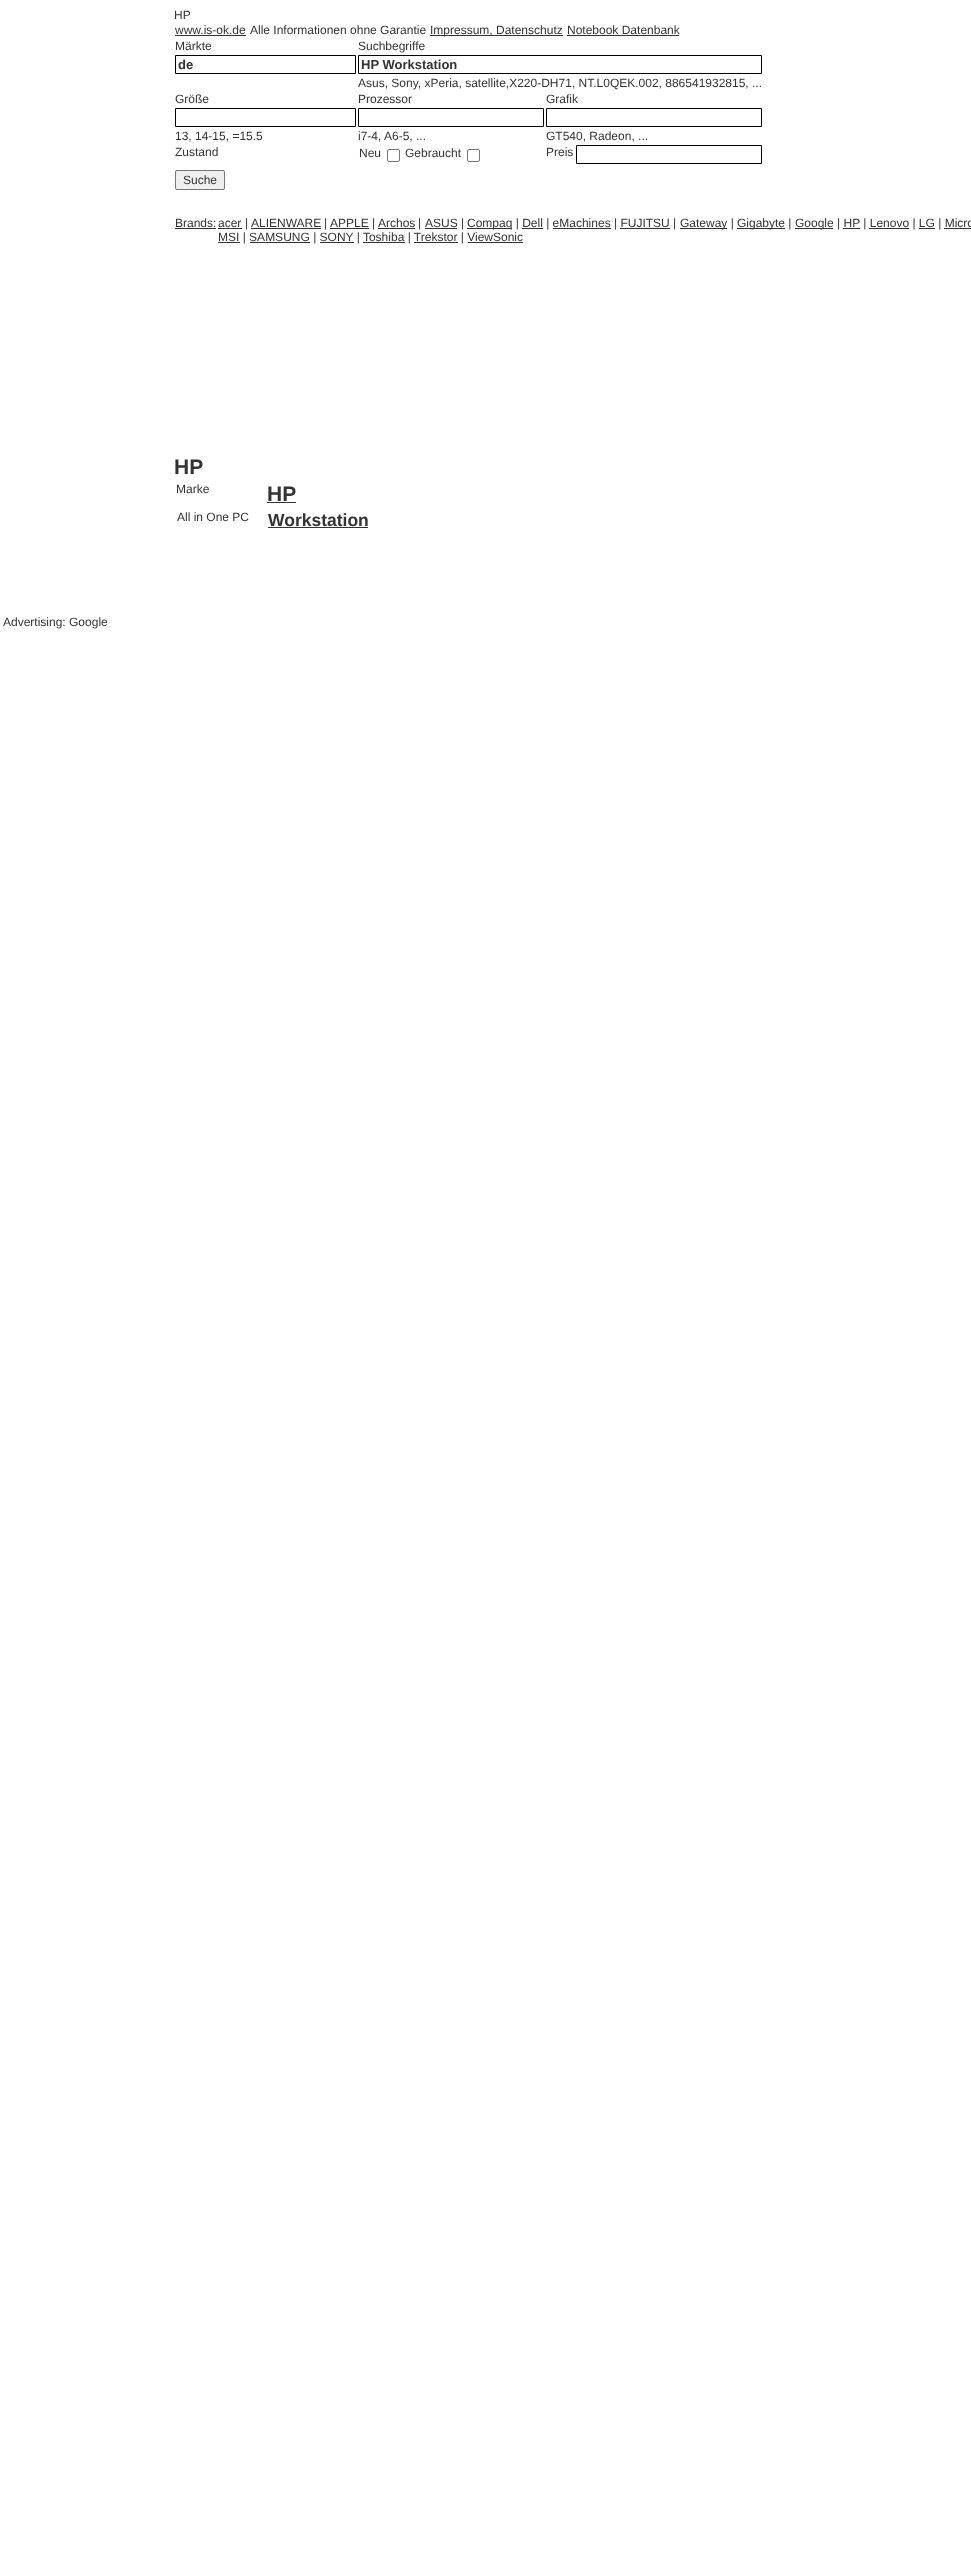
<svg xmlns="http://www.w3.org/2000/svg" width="971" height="2549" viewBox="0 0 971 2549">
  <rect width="100%" height="100%" fill="#fff"/>
  <path d="M175 35h71v1H175z" fill="#333"/>
  <path d="M430 35h133v1H430z" fill="#333"/>
  <path d="M567 35h112v1H567z" fill="#333"/>
  <path d="M175.5 55.5h180v18H175.5z" fill="none" stroke="#000"/>
  <path d="M358.5 55.5h403v18H358.5z" fill="none" stroke="#000"/>
  <path d="M175.5 108.5h180v18H175.5z" fill="none" stroke="#000"/>
  <path d="M358.5 108.5h185v18H358.5z" fill="none" stroke="#000"/>
  <path d="M546.5 108.5h215v18H546.5z" fill="none" stroke="#000"/>
  <rect x="387.5" y="149.5" width="12" height="12" rx="1.5" fill="none" stroke="#767676"/>
  <rect x="467.5" y="149.5" width="12" height="12" rx="1.5" fill="none" stroke="#767676"/>
  <path d="M576.5 145.5h185v18H576.5z" fill="none" stroke="#000"/>
  <rect x="175.5" y="170.5" width="49" height="19" rx="1.5" fill="#efefef" stroke="#767676"/>
  <path d="M175 228h41v1H175z" fill="#333"/>
  <path d="M218 228h24v1H218z" fill="#333"/>
  <path d="M251 228h70v1H251z" fill="#333"/>
  <path d="M330 228h39v1H330z" fill="#333"/>
  <path d="M378 228h37v1H378z" fill="#333"/>
  <path d="M425 228h32v1H425z" fill="#333"/>
  <path d="M467 228h45v1H467z" fill="#333"/>
  <path d="M680 228h47v1H680z" fill="#333"/>
  <path d="M737 228h48v1H737z" fill="#333"/>
  <path d="M795 228h38v1H795z" fill="#333"/>
  <path d="M522 228h21v1H522z" fill="#333"/>
  <path d="M553 228h58v1H553z" fill="#333"/>
  <path d="M620 228h50v1H620z" fill="#333"/>
  <path d="M843 228h17v1H843z" fill="#333"/>
  <path d="M869 228h40v1H869z" fill="#333"/>
  <path d="M919 228h16v1H919z" fill="#333"/>
  <path d="M944 228h27v1H944z" fill="#333"/>
  <path d="M218 242h22v1H218z" fill="#333"/>
  <path d="M250 242h60v1H250z" fill="#333"/>
  <path d="M320 242h34v1H320z" fill="#333"/>
  <path d="M363 242h42v1H363z" fill="#333"/>
  <path d="M414 242h44v1H414z" fill="#333"/>
  <path d="M468 242h55v1H468z" fill="#333"/>
  <path d="M267 502h29v1H267z" fill="#333"/>
  <path d="M268 527h100v1H268z" fill="#333"/>
  <g font-family="Liberation Sans" font-size="12" fill="#333">
    <text x="174" y="19">HP</text>
    <text x="175" y="34">www.is-ok.de</text>
    <text x="250" y="34">Alle Informationen ohne Garantie</text>
    <text x="430" y="34">Impressum, Datenschutz</text>
    <text x="567" y="34">Notebook Datenbank</text>
    <text x="175" y="50">Märkte</text>
    <text x="358" y="50">Suchbegriffe</text>
  </g>
  <g font-family="Liberation Sans" font-size="13" font-weight="bold" fill="#333">
    <text x="178" y="69">de</text>
    <text x="361" y="69">HP Workstation</text>
  </g>
  <g font-family="Liberation Sans" font-size="12" fill="#333">
    <text x="358" y="87">Asus, Sony, xPeria, satellite,X220-DH71, NT.L0QEK.002, 886541932815, ...</text>
    <text x="175" y="103">Größe</text>
    <text x="358" y="103">Prozessor</text>
    <text x="546" y="103">Grafik</text>
    <text x="175" y="140">13, 14-15, =15.5</text>
    <text x="358" y="140">i7-4, A6-5, ...</text>
    <text x="546" y="140">GT540, Radeon, ...</text>
    <text x="175" y="156">Zustand</text>
    <text x="359" y="157">Neu</text>
    <text x="405" y="157">Gebraucht</text>
    <text x="546" y="156">Preis</text>
    <text x="183" y="184">Suche</text>
    <text x="175" y="227">Brands:</text>
    <text x="218" y="227">acer</text>
    <text x="245" y="227">|</text>
    <text x="251" y="227">ALIENWARE</text>
    <text x="324" y="227">|</text>
    <text x="330" y="227">APPLE</text>
    <text x="372" y="227">|</text>
    <text x="378" y="227">Archos</text>
    <text x="418" y="227">|</text>
    <text x="425" y="227">ASUS |</text>
    <text x="467" y="227">Compaq | Dell | eMachines | FUJITSU |</text>
    <text x="680" y="227">Gateway |</text>
    <text x="737" y="227">Gigabyte |</text>
    <text x="795" y="227">Google | HP | Lenovo | LG | Micro</text>
    <text x="218" y="241">MSI | SAMSUNG | SONY | Toshiba | Trekstor | ViewSonic</text>
  </g>
  <text x="174" y="474" font-family="Liberation Sans" font-size="21" font-weight="bold" fill="#333">HP</text>
  <text x="176" y="493" font-family="Liberation Sans" font-size="12" fill="#333">Marke</text>
  <text x="267" y="501" font-family="Liberation Sans" font-size="21" font-weight="bold" fill="#333">HP</text>
  <text x="177" y="521" font-family="Liberation Sans" font-size="12" fill="#333">All in One PC</text>
  <text x="268" y="526" font-family="Liberation Sans" font-size="17.5" font-weight="bold" fill="#333">Workstation</text>
  <text x="3" y="626" font-family="Liberation Sans" font-size="12" fill="#333">Advertising: Google</text>
</svg>
